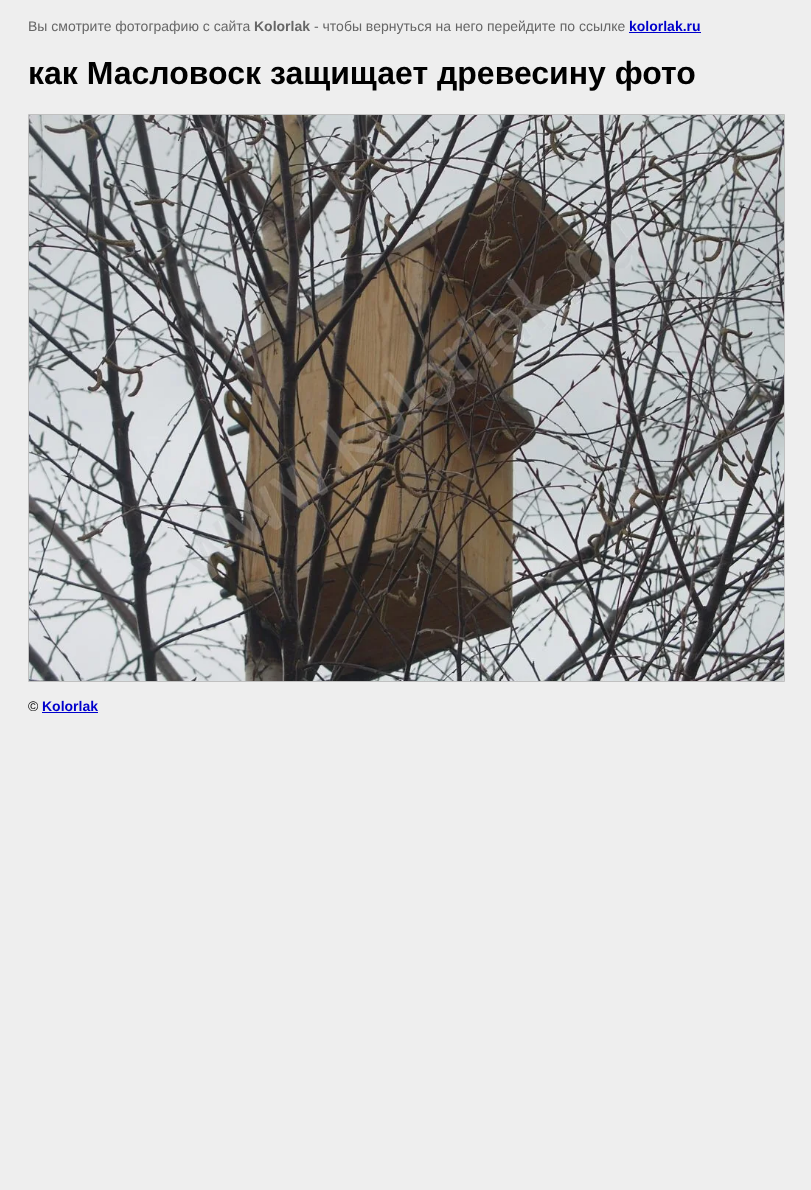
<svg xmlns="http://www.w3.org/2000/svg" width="811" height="1190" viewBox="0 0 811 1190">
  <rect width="100%" height="100%" fill="#eee"/>
  <path d="M629 32h72v1H629z" fill="#00c"/>
  <path d="M28.5 114.5h756v567H28.5z" fill="none" stroke="#c0c0c0"/>
  <image x="29" y="115" width="755" height="566" href="img/1.png"/>
  <path d="M42 712h56v1H42z" fill="#00c"/>
  <text x="28" y="31" font-family="Liberation Sans" font-size="14" fill="#666">Вы смотрите фотографию с сайта</text>
  <text x="254" y="31" font-family="Liberation Sans" font-size="14" font-weight="bold" fill="#666">Kolorlak</text>
  <text x="314" y="31" font-family="Liberation Sans" font-size="14" fill="#666">- чтобы вернуться на него перейдите по ссылке</text>
  <text x="629" y="31" font-family="Liberation Sans" font-size="14" font-weight="bold" fill="#00c">kolorlak.ru</text>
  <text x="28" y="84" font-family="Liberation Sans" font-size="32" font-weight="bold" fill="#000">как Масловоск защищает древесину фото</text>
  <text x="28" y="711" font-family="Liberation Sans" font-size="14" fill="#000">©</text>
  <text x="42" y="711" font-family="Liberation Sans" font-size="14" font-weight="bold" fill="#00c">Kolorlak</text>
</svg>
